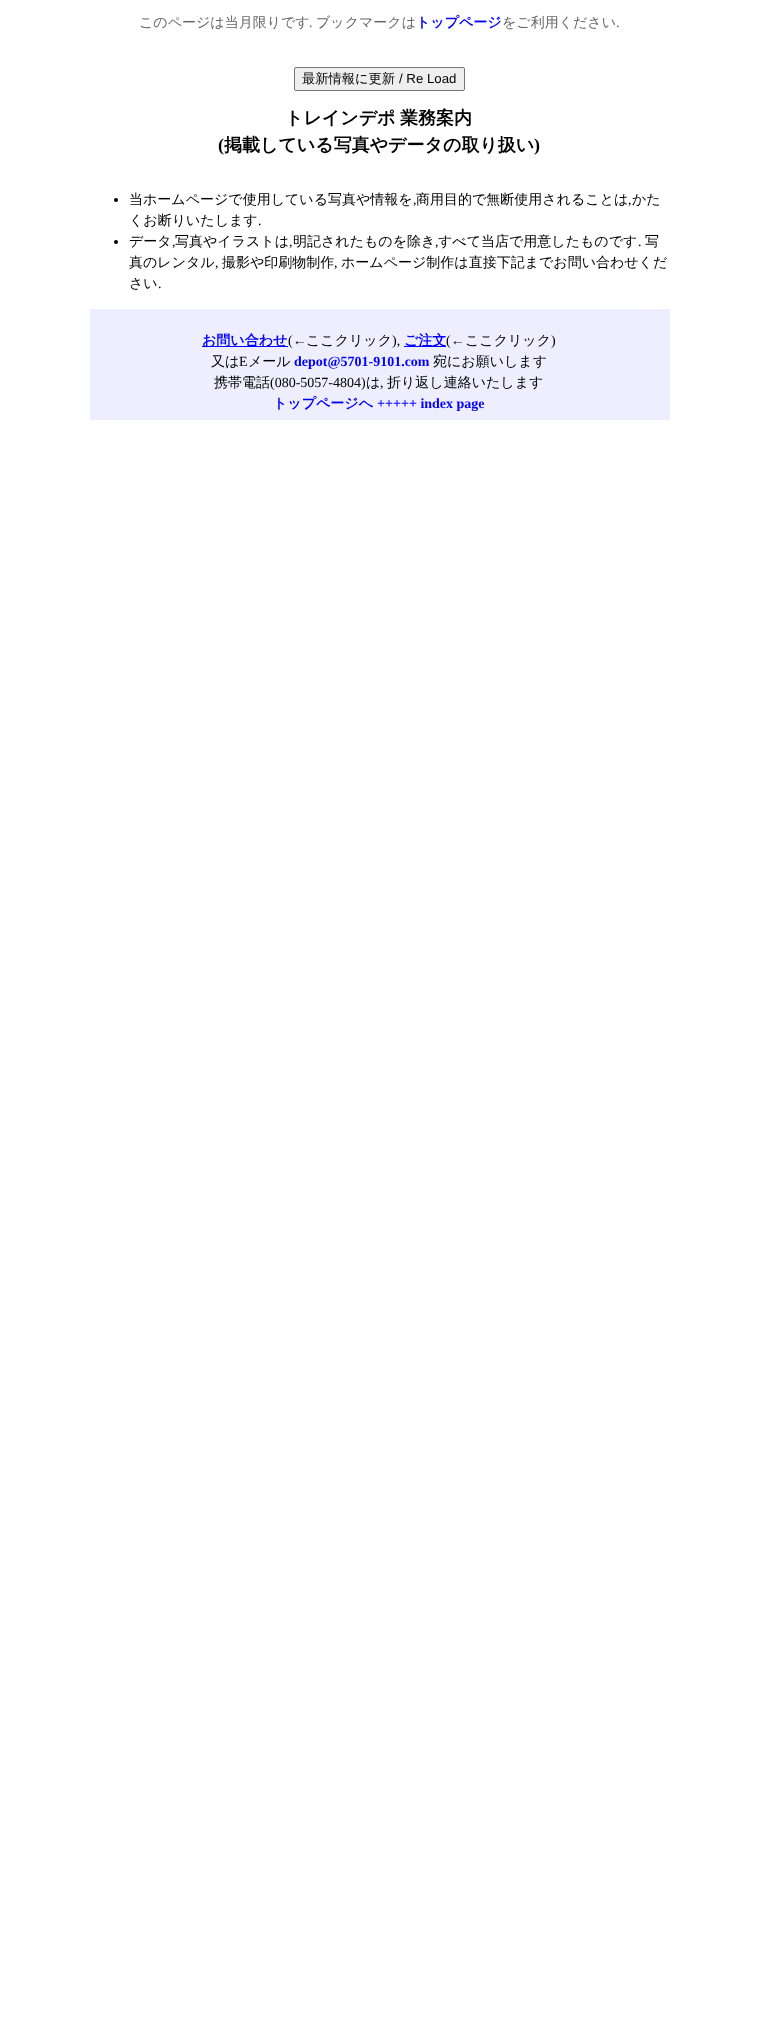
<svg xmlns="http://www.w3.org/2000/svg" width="759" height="2037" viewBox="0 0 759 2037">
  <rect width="100%" height="100%" fill="#fff"/>
  <rect x="294.5" y="67.5" width="170" height="23" rx="1.5" fill="#efefef" stroke="#767676"/>
  <circle cx="116" cy="200" r="2" fill="#000"/>
  <circle cx="116" cy="242" r="2" fill="#000"/>
  <path d="M90 309h580v111H90z" fill="#eef"/>
  <path d="M202 346h86v1H202z" fill="#00f"/>
  <path d="M404 346h42v1H404z" fill="#00f"/>
  <text x="139" y="27" font-family="WenQuanYi Zen Hei" font-size="14" font-weight="500" fill="#666">このページは当月限りです</text>
  <text x="309" y="27" font-family="Liberation Serif" font-size="14" fill="#666">.</text>
  <text x="316" y="27" font-family="WenQuanYi Zen Hei" font-size="14" font-weight="500" fill="#666">ブックマークは</text>
  <text x="416" y="27" font-family="WenQuanYi Zen Hei" font-size="14" font-weight="bold" fill="#00f">トップページ</text>
  <text x="502" y="27" font-family="WenQuanYi Zen Hei" font-size="14" font-weight="500" fill="#666">をご利用ください</text>
  <text x="616" y="27" font-family="Liberation Serif" font-size="14" fill="#666">.</text>
  <text x="302" y="83" font-family="WenQuanYi Zen Hei" font-size="13.25" font-weight="500" fill="#000">最新情報に更新</text>
  <text x="399" y="83" font-family="Liberation Sans" font-size="13.25" fill="#000">/ Re Load</text>
  <text x="285" y="124" word-spacing="-1" font-family="WenQuanYi Zen Hei" font-size="18" font-weight="bold" fill="#000">トレインデポ 業務案内</text>
  <text x="218" y="151" font-family="Liberation Serif" font-size="18" font-weight="bold" fill="#000">(</text>
  <text x="224" y="151" font-family="WenQuanYi Zen Hei" font-size="18" font-weight="bold" fill="#000">掲載している写真やデータの取り扱い</text>
  <text x="534" y="151" font-family="Liberation Serif" font-size="18" font-weight="bold" fill="#000">)</text>
  <g font-family="WenQuanYi Zen Hei" font-size="14" font-weight="500" fill="#000">
    <text x="129" y="204">当ホームページで使用している写真や情報を</text>
    <text x="416" y="204">商用目的で無断使用されることは</text>
    <text x="632" y="204">かた</text>
  </g>
  <g font-family="Liberation Serif" font-size="14" fill="#000">
    <text x="413" y="204">,</text>
    <text x="628" y="204">,</text>
  </g>
  <text x="129" y="225" font-family="WenQuanYi Zen Hei" font-size="14" font-weight="500" fill="#000">くお断りいたします</text>
  <text x="258" y="225" font-family="Liberation Serif" font-size="14" fill="#000">.</text>
  <g font-family="WenQuanYi Zen Hei" font-size="14" font-weight="500" fill="#000">
    <text x="129" y="246">データ</text>
    <text x="175" y="246">写真やイラストは</text>
    <text x="293" y="246">明記されたものを除き</text>
    <text x="438" y="246">すべて当店で用意したものです</text>
    <text x="645" y="246">写</text>
  </g>
  <g font-family="Liberation Serif" font-size="14" fill="#000">
    <text x="172" y="246">,</text>
    <text x="289" y="246">,</text>
    <text x="435" y="246">,</text>
    <text x="638" y="246">.</text>
  </g>
  <text x="129" y="267" font-family="WenQuanYi Zen Hei" font-size="14" font-weight="500" fill="#000">真のレンタル</text>
  <text x="215" y="267" font-family="Liberation Serif" font-size="14" fill="#000">,</text>
  <text x="222" y="267" font-family="WenQuanYi Zen Hei" font-size="14" font-weight="500" fill="#000">撮影や印刷物制作</text>
  <text x="334" y="267" font-family="Liberation Serif" font-size="14" fill="#000">,</text>
  <g font-family="WenQuanYi Zen Hei" font-size="14" font-weight="500" fill="#000">
    <text x="341" y="267">ホームページ制作は直接下記までお問い合わせくだ</text>
    <text x="129" y="288">さい</text>
  </g>
  <text x="158" y="288" font-family="Liberation Serif" font-size="14" fill="#000">.</text>
  <text x="202" y="345" font-family="WenQuanYi Zen Hei" font-size="14" font-weight="bold" fill="#00f">お問い合わせ</text>
  <text x="288" y="345" font-family="Liberation Serif" font-size="14" fill="#000">(←</text>
  <text x="306" y="345" font-family="WenQuanYi Zen Hei" font-size="14" font-weight="500" fill="#000">ここクリック</text>
  <text x="392" y="345" font-family="Liberation Serif" font-size="14" fill="#000">),</text>
  <text x="404" y="345" font-family="WenQuanYi Zen Hei" font-size="14" font-weight="bold" fill="#00f">ご注文</text>
  <text x="446" y="345" font-family="Liberation Serif" font-size="14" fill="#000">(←</text>
  <text x="465" y="345" font-family="WenQuanYi Zen Hei" font-size="14" font-weight="500" fill="#000">ここクリック</text>
  <text x="551" y="345" font-family="Liberation Serif" font-size="14" fill="#000">)</text>
  <text x="211" y="366" font-family="WenQuanYi Zen Hei" font-size="14" font-weight="500" fill="#000">又は</text>
  <text x="239" y="366" font-family="Liberation Serif" font-size="14" fill="#000">E</text>
  <text x="248" y="366" font-family="WenQuanYi Zen Hei" font-size="14" font-weight="500" fill="#000">メール</text>
  <text x="294" y="366" font-family="Liberation Serif" font-size="14" font-weight="bold" fill="#00f">depot@5701-9101.com</text>
  <g font-family="WenQuanYi Zen Hei" font-size="14" font-weight="500" fill="#000">
    <text x="433" y="366">宛にお願いします</text>
    <text x="214" y="387">携帯電話</text>
  </g>
  <text x="270" y="387" font-family="Liberation Serif" font-size="14" fill="#000">(080-5057-4804)</text>
  <text x="366" y="387" font-family="WenQuanYi Zen Hei" font-size="14" font-weight="500" fill="#000">は</text>
  <text x="380" y="387" font-family="Liberation Serif" font-size="14" fill="#000">,</text>
  <text x="387" y="387" font-family="WenQuanYi Zen Hei" font-size="14" font-weight="500" fill="#000">折り返し連絡いたします</text>
  <text x="273" y="408" font-family="WenQuanYi Zen Hei" font-size="14" font-weight="bold" fill="#00f">トップページへ</text>
  <text x="377" y="408" font-family="Liberation Serif" font-size="14" font-weight="bold" fill="#00f">+++++ index page</text>
</svg>
